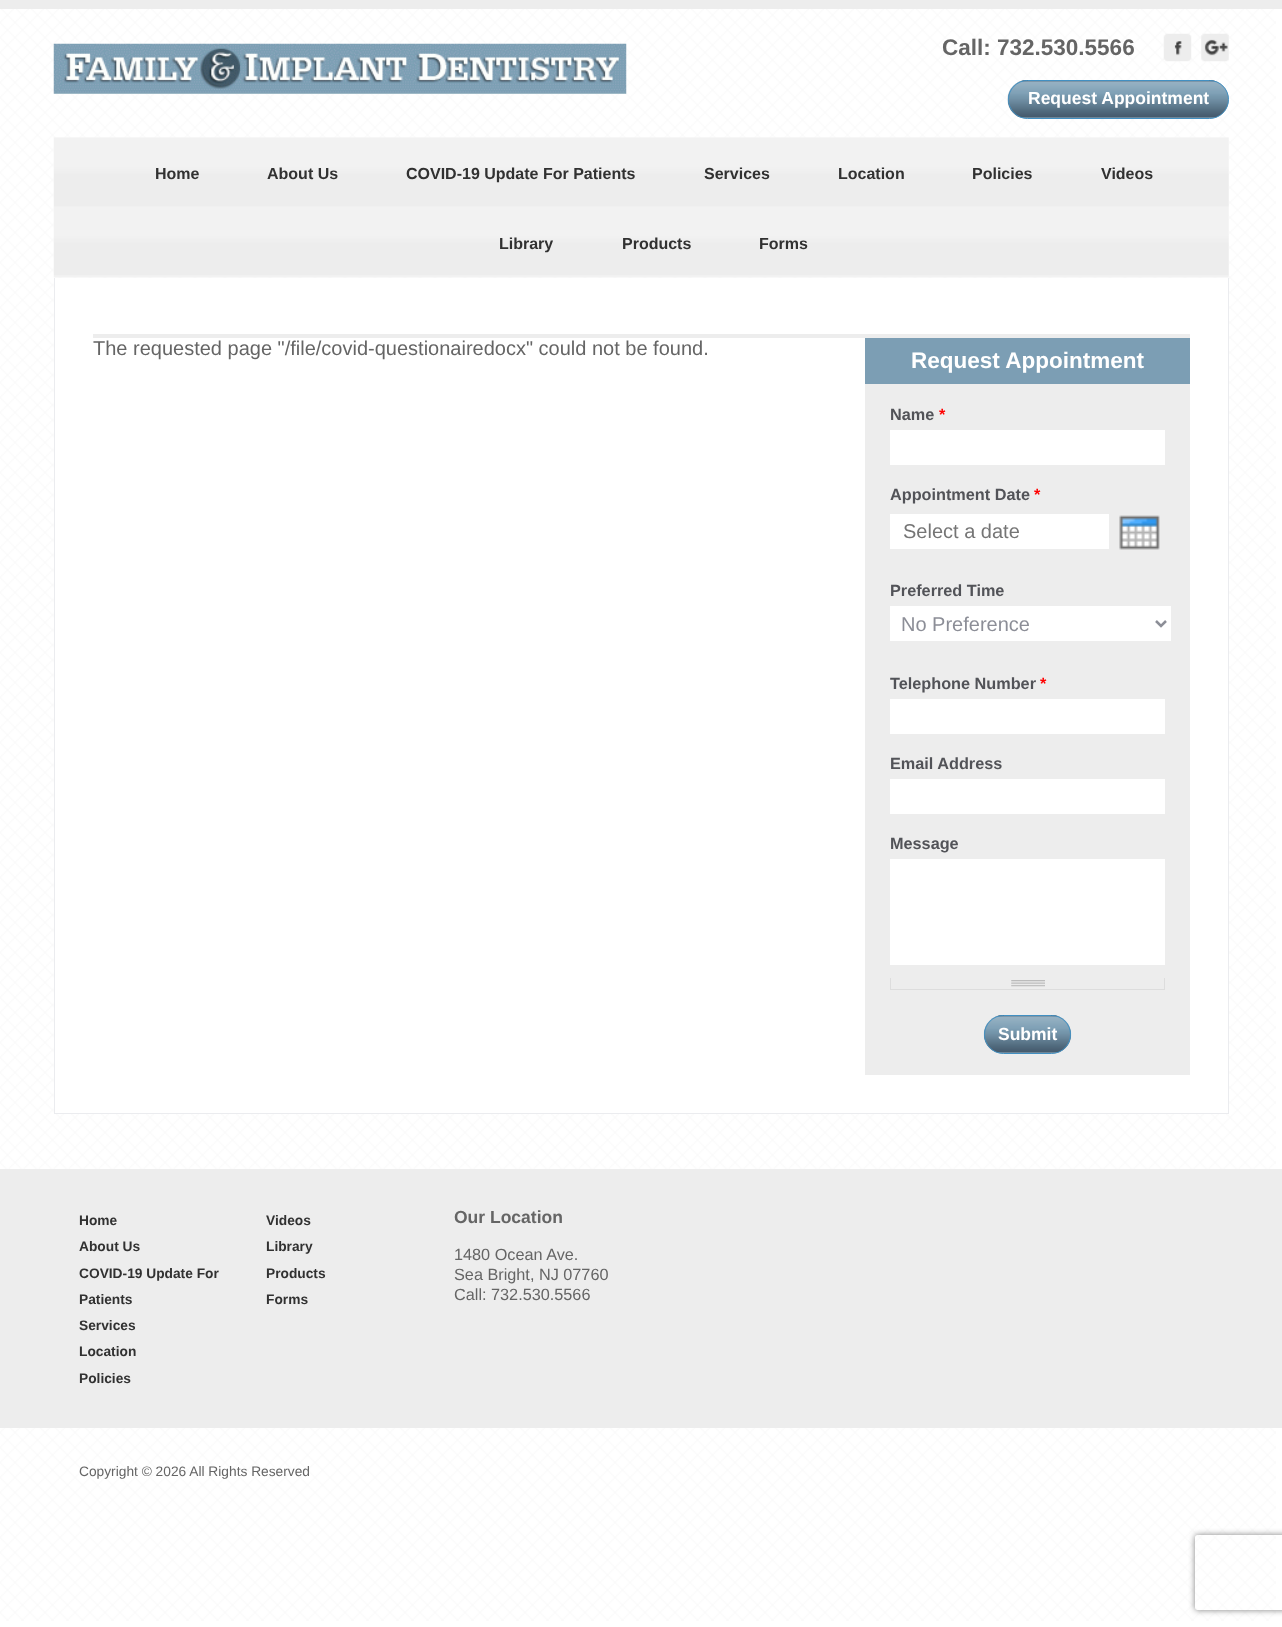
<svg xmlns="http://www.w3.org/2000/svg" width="1282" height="1627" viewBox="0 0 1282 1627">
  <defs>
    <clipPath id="clip1"><path d="M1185 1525H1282V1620H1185ZM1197.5 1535H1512.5C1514 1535 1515 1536 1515 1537.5V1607.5C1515 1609 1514 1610 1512.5 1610H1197.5C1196 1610 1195 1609 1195 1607.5V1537.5C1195 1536 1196 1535 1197.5 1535Z" clip-rule="evenodd"/></clipPath>
  </defs>
  <rect width="100%" height="100%" fill="#fff"/>
  <image x="0" y="9" width="1276" height="1612" href="img/1.png"/>
  <path d="M0 0h1282v9H0z" fill="#ededed"/>
  <image x="53" y="43" width="574" height="51" href="img/2.png"/>
  <image x="1163" y="33" width="29" height="29" href="img/3.png"/>
  <image x="1201" y="33" width="28" height="29" href="img/4.png"/>
  <image x="1007" y="80" width="222" height="39" href="img/5.png"/>
  <rect x="1008.5" y="80.5" width="220" height="38" rx="19" fill="none" stroke="#4290c2"/>
  <image x="53" y="137" width="1176" height="141" href="img/6.png"/>
  <path d="M55 278h1173v835H55z" fill="#fff"/>
  <path d="M1228 278h1v836H1228z" fill="#ebecef"/>
  <path d="M54 1113h1175v1H54z" fill="#ebecef"/>
  <path d="M54 278h1v836H54z" fill="#ebecef"/>
  <path d="M93 334h1097v4H93z" fill="#ededed"/>
  <path d="M865 338h325v46H865z" fill="#7c9eb4"/>
  <path d="M865 384h325v691H865z" fill="#ededed"/>
  <path d="M890 430h275v35H890z" fill="#fff"/>
  <path d="M890 514h219v35H890z" fill="#fff"/>
  <image x="1119" y="515" width="41" height="35" href="img/7.png"/>
  <path d="M890 606h281v35H890z" fill="#fff"/>
  <path d="M1156 621L1161 626L1166 621" fill="none" stroke="#8c8e97" stroke-width="2.5"/>
  <path d="M890 699h275v35H890z" fill="#fff"/>
  <path d="M890 779h275v35H890z" fill="#fff"/>
  <path d="M890 859h275v106H890z" fill="#fff"/>
  <image x="1011" y="980" width="34" height="7" href="img/8.png"/>
  <path d="M1164 978h1v12H1164z" fill="#ddd"/>
  <path d="M890 989h275v1H890z" fill="#ddd"/>
  <path d="M890 978h1v12H890z" fill="#ddd"/>
  <image x="983" y="1015" width="89" height="39" href="img/9.png"/>
  <rect x="984.5" y="1015.5" width="86" height="38" rx="19" fill="none" stroke="#4290c2"/>
  <path d="M0 1169h1282v259H0z" fill="#ededed"/>
  <g clip-path="url(#clip1)">
    <rect x="1195" y="1535" width="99" height="75" rx="2.5" fill="#808080" filter="blur(3px)"/>
  </g>
  <text x="942" y="55" font-family="Liberation Sans" font-size="22.5" font-weight="bold" fill="#656565">Call: 732.530.5566</text>
  <text x="1028" y="104" font-family="Liberation Sans" font-size="17.5" font-weight="bold" fill="#fff">Request Appointment</text>
  <g font-family="Liberation Sans" font-size="16" font-weight="bold" fill="#313131">
    <text x="155" y="179">Home</text>
    <text x="267" y="179">About Us</text>
    <text x="406" y="179">COVID-19 Update For Patients</text>
    <text x="704" y="179">Services</text>
    <text x="838" y="179">Location</text>
    <text x="972" y="179">Policies</text>
    <text x="1101" y="179">Videos</text>
    <text x="499" y="249">Library</text>
    <text x="622" y="249">Products</text>
    <text x="759" y="249">Forms</text>
  </g>
  <text x="93" y="355" font-family="Liberation Sans" font-size="20" fill="#656565">The requested page "/file/covid-questionairedocx" could not be found.</text>
  <text x="911" y="368" font-family="Liberation Sans" font-size="22.5" font-weight="bold" fill="#fff">Request Appointment</text>
  <text x="890" y="420" font-family="Liberation Sans" font-size="16.25" font-weight="bold" fill="#525358">Name</text>
  <text x="939" y="420" font-family="Liberation Sans" font-size="16.25" font-weight="bold" fill="#f00">*</text>
  <text x="890" y="500" font-family="Liberation Sans" font-size="16.25" font-weight="bold" fill="#525358">Appointment Date</text>
  <text x="1034" y="500" font-family="Liberation Sans" font-size="16.25" font-weight="bold" fill="#f00">*</text>
  <text x="903" y="538" font-family="Liberation Sans" font-size="20" fill="#757575">Select a date</text>
  <text x="890" y="596" font-family="Liberation Sans" font-size="16.25" font-weight="bold" fill="#525358">Preferred Time</text>
  <text x="901" y="631" font-family="Liberation Sans" font-size="20" fill="#8c8e97">No Preference</text>
  <text x="890" y="689" font-family="Liberation Sans" font-size="16.25" font-weight="bold" fill="#525358">Telephone Number</text>
  <text x="1040" y="689" font-family="Liberation Sans" font-size="16.25" font-weight="bold" fill="#f00">*</text>
  <g font-family="Liberation Sans" font-size="16.25" font-weight="bold" fill="#525358">
    <text x="890" y="769">Email Address</text>
    <text x="890" y="849">Message</text>
  </g>
  <text x="998" y="1040" font-family="Liberation Sans" font-size="17.5" font-weight="bold" fill="#fff">Submit</text>
  <g font-family="Liberation Sans" font-size="13.75" font-weight="bold" fill="#313131">
    <text x="79" y="1225">Home</text>
    <text x="79" y="1251">About Us</text>
    <text x="79" y="1278">COVID-19 Update For</text>
    <text x="79" y="1304">Patients</text>
    <text x="79" y="1330">Services</text>
    <text x="79" y="1356">Location</text>
    <text x="79" y="1383">Policies</text>
    <text x="266" y="1225">Videos</text>
    <text x="266" y="1251">Library</text>
    <text x="266" y="1278">Products</text>
    <text x="266" y="1304">Forms</text>
  </g>
  <text x="454" y="1223" font-family="Liberation Sans" font-size="17.5" font-weight="bold" fill="#656565">Our Location</text>
  <g font-family="Liberation Sans" font-size="16.25" fill="#656565">
    <text x="454" y="1260">1480 Ocean Ave.</text>
    <text x="454" y="1280">Sea Bright, NJ 07760</text>
    <text x="454" y="1300">Call: 732.530.5566</text>
  </g>
  <text x="79" y="1476" font-family="Liberation Sans" font-size="13.75" fill="#656565">Copyright © 2026 All Rights Reserved</text>
</svg>
